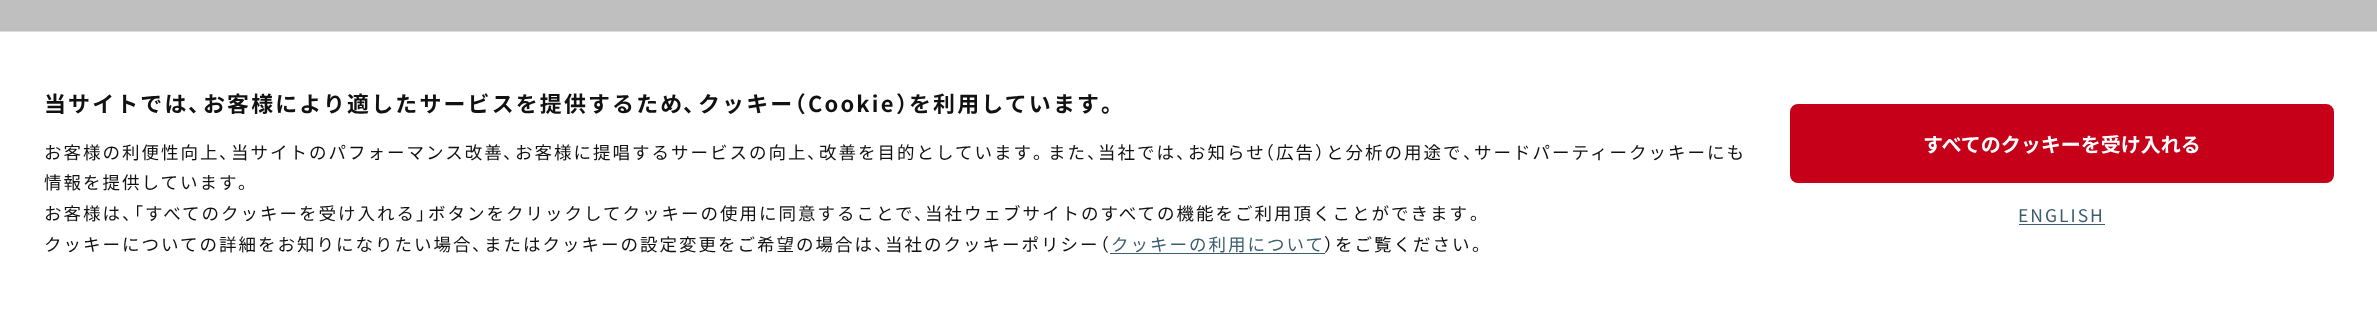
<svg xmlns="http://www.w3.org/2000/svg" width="2377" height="320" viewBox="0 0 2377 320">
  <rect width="100%" height="100%" fill="#bfbfbf"/>
  <path d="M0 32h2377v288H0z" fill="#fff"/>
  <path d="M0 31h2377v1H0z" fill="#ddd"/>
  <path d="M1110 253h215v1H1110z" fill="#3c5c70"/>
  <rect x="1791.5" y="105.5" width="541" height="76" rx="6.5" fill="#c50018" stroke="#c50018" stroke-width="3"/>
  <path d="M2019 224h86v1H2019z" fill="#3c5c70"/>
  <text x="44" y="112" font-family="Noto Sans JP" font-size="21.9" font-weight="bold" letter-spacing="2.2" fill="#111">当サイトでは</text>
  <text x="188" y="112" font-family="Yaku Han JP" font-size="21.9" font-weight="bold" letter-spacing="2.2" fill="#111">、</text>
  <text x="203" y="112" font-family="Noto Sans JP" font-size="21.9" font-weight="bold" letter-spacing="2.2" fill="#111">お客様により適したサービスを提供するため</text>
  <text x="683" y="112" font-family="Yaku Han JP" font-size="21.9" font-weight="bold" letter-spacing="2.2" fill="#111">、</text>
  <text x="698" y="112" font-family="Noto Sans JP" font-size="21.9" font-weight="bold" letter-spacing="2.2" fill="#111">クッキー</text>
  <text x="794" y="112" font-family="Yaku Han JP" font-size="21.9" font-weight="bold" letter-spacing="2.2" fill="#111">（</text>
  <text x="808" y="112" font-family="Noto Sans JP" font-size="21.9" font-weight="bold" letter-spacing="2.2" fill="#111">Cookie</text>
  <text x="896" y="112" font-family="Yaku Han JP" font-size="21.9" font-weight="bold" letter-spacing="2.2" fill="#111">）</text>
  <text x="909" y="112" font-family="Noto Sans JP" font-size="21.9" font-weight="bold" letter-spacing="2.2" fill="#111">を利用しています</text>
  <text x="1101" y="112" font-family="Yaku Han JP" font-size="21.9" font-weight="bold" letter-spacing="2.2" fill="#111">。</text>
  <text x="44" y="159" font-family="Noto Sans JP" font-size="17.5" letter-spacing="2" fill="#111">お客様の利便性向上</text>
  <text x="219" y="159" font-family="Yaku Han JP" font-size="17.5" letter-spacing="2" fill="#111">、</text>
  <text x="231" y="159" font-family="Noto Sans JP" font-size="17.5" letter-spacing="2" fill="#111">当サイトのパフォーマンス改善</text>
  <text x="503" y="159" font-family="Yaku Han JP" font-size="17.5" letter-spacing="2" fill="#111">、</text>
  <text x="515" y="159" font-family="Noto Sans JP" font-size="17.5" letter-spacing="2" fill="#111">お客様に提唱するサービスの向上</text>
  <text x="807" y="159" font-family="Yaku Han JP" font-size="17.5" letter-spacing="2" fill="#111">、</text>
  <text x="819" y="159" font-family="Noto Sans JP" font-size="17.5" letter-spacing="2" fill="#111">改善を目的としています</text>
  <text x="1033" y="159" font-family="Yaku Han JP" font-size="17.5" letter-spacing="2" fill="#111">。</text>
  <text x="1048" y="159" font-family="Noto Sans JP" font-size="17.5" letter-spacing="2" fill="#111">また</text>
  <text x="1087" y="159" font-family="Yaku Han JP" font-size="17.5" letter-spacing="2" fill="#111">、</text>
  <text x="1098" y="159" font-family="Noto Sans JP" font-size="17.5" letter-spacing="2" fill="#111">当社では</text>
  <text x="1176" y="159" font-family="Yaku Han JP" font-size="17.5" letter-spacing="2" fill="#111">、</text>
  <text x="1188" y="159" font-family="Noto Sans JP" font-size="17.5" letter-spacing="2" fill="#111">お知らせ</text>
  <text x="1265" y="159" font-family="Yaku Han JP" font-size="17.5" letter-spacing="2" fill="#111">（</text>
  <text x="1276" y="159" font-family="Noto Sans JP" font-size="17.5" letter-spacing="2" fill="#111">広告</text>
  <text x="1315" y="159" font-family="Yaku Han JP" font-size="17.5" letter-spacing="2" fill="#111">）</text>
  <text x="1326" y="159" font-family="Noto Sans JP" font-size="17.5" letter-spacing="2" fill="#111">と分析の用途で</text>
  <text x="1463" y="159" font-family="Yaku Han JP" font-size="17.5" letter-spacing="2" fill="#111">、</text>
  <g font-family="Noto Sans JP" font-size="17.5" letter-spacing="2" fill="#111">
    <text x="1474" y="159">サードパーティークッキーにも</text>
    <text x="44" y="189">情報を提供しています</text>
  </g>
  <text x="238" y="189" font-family="Yaku Han JP" font-size="17.5" letter-spacing="2" fill="#111">。</text>
  <text x="44" y="220" font-family="Noto Sans JP" font-size="17.5" letter-spacing="2" fill="#111">お客様は</text>
  <text x="122" y="220" font-family="Yaku Han JP" font-size="17.5" letter-spacing="2" fill="#111">、「</text>
  <text x="145" y="220" font-family="Noto Sans JP" font-size="17.5" letter-spacing="2" fill="#111">すべてのクッキーを受け入れる</text>
  <text x="416" y="220" font-family="Yaku Han JP" font-size="17.5" letter-spacing="2" fill="#111">」</text>
  <text x="428" y="220" font-family="Noto Sans JP" font-size="17.5" letter-spacing="2" fill="#111">ボタンをクリックしてクッキーの使用に同意することで</text>
  <text x="914" y="220" font-family="Yaku Han JP" font-size="17.5" letter-spacing="2" fill="#111">、</text>
  <text x="925" y="220" font-family="Noto Sans JP" font-size="17.5" letter-spacing="2" fill="#111">当社ウェブサイトのすべての機能をご利用頂くことができます</text>
  <text x="1470" y="220" font-family="Yaku Han JP" font-size="17.5" letter-spacing="2" fill="#111">。</text>
  <text x="44" y="251" font-family="Noto Sans JP" font-size="17.5" letter-spacing="2" fill="#111">クッキーについての詳細をお知りになりたい場合</text>
  <text x="472" y="251" font-family="Yaku Han JP" font-size="17.5" letter-spacing="2" fill="#111">、</text>
  <text x="484" y="251" font-family="Noto Sans JP" font-size="17.5" letter-spacing="2" fill="#111">またはクッキーの設定変更をご希望の場合は</text>
  <text x="874" y="251" font-family="Yaku Han JP" font-size="17.5" letter-spacing="2" fill="#111">、</text>
  <text x="885" y="251" font-family="Noto Sans JP" font-size="17.5" letter-spacing="2" fill="#111">当社のクッキーポリシー</text>
  <text x="1100" y="251" font-family="Yaku Han JP" font-size="17.5" letter-spacing="2" fill="#111">（</text>
  <text x="1111" y="251" font-family="Noto Sans JP" font-size="17.5" letter-spacing="2" fill="#3c5c70">クッキーの利用について</text>
  <text x="1324" y="251" font-family="Yaku Han JP" font-size="17.5" letter-spacing="2" fill="#111">）</text>
  <text x="1335" y="251" font-family="Noto Sans JP" font-size="17.5" letter-spacing="2" fill="#111">をご覧ください</text>
  <text x="1472" y="251" font-family="Yaku Han JP" font-size="17.5" letter-spacing="2" fill="#111">。</text>
  <text x="1923" y="152" font-family="Noto Sans JP" font-size="20" font-weight="bold" fill="#fff">すべてのクッキーを受け入れる</text>
  <text x="2018" y="222" font-family="Noto Sans JP" font-size="17.5" letter-spacing="2" fill="#3c5c70">ENGLISH</text>
</svg>
